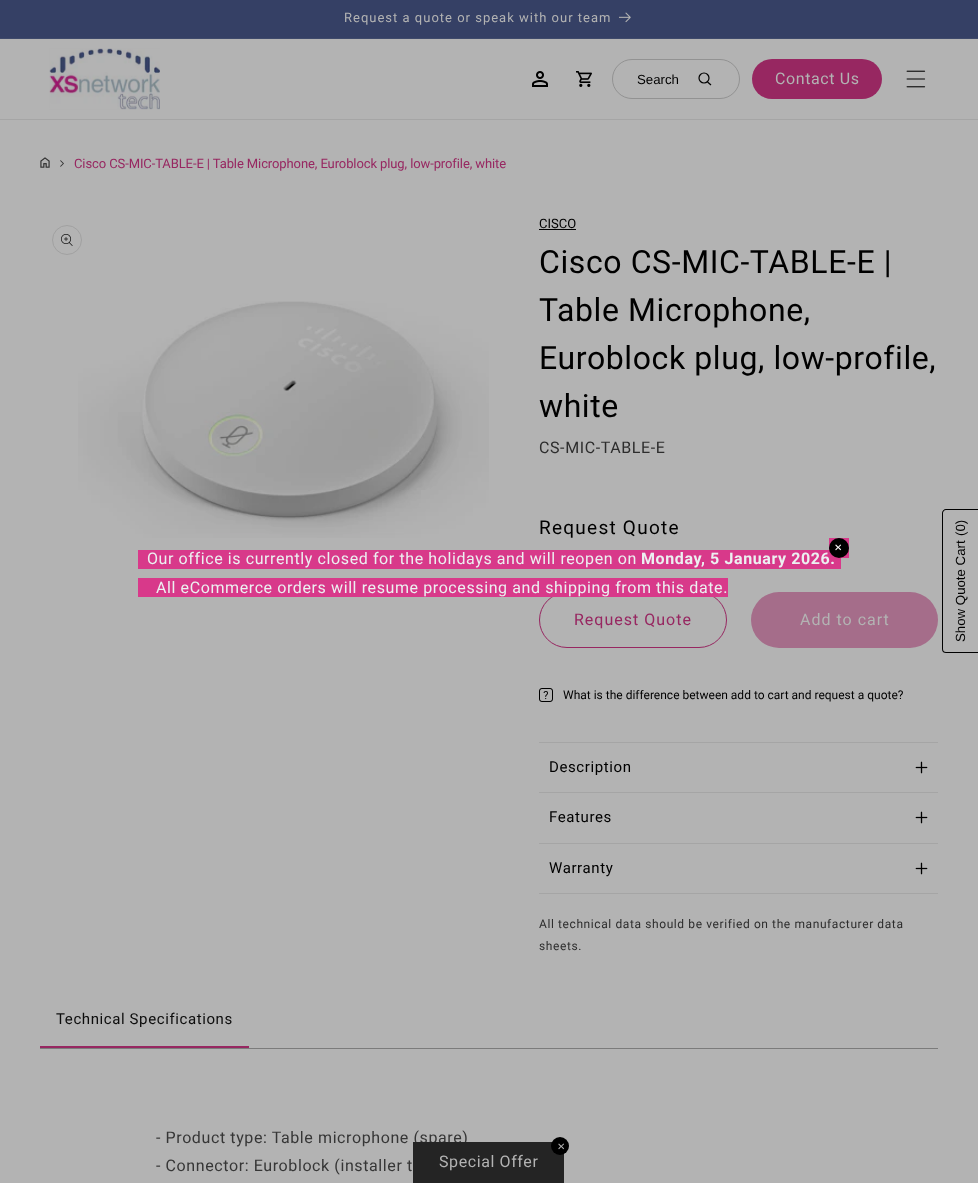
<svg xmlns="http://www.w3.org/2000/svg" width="978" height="1183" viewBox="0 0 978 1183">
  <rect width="100%" height="100%" fill="#b3b3b3"/>
  <path d="M0 0h978v38H0z" fill="#354065"/>
  <path d="M0 38h978v1H0z" fill="#3f4a6b"/>
  <image x="619" y="12" width="12" height="11" href="img/1.png"/>
  <path d="M0 119h978v1H0z" fill="#a5a5a5"/>
  <image x="49" y="48" width="111" height="62" href="img/2.png"/>
  <image x="532" y="71" width="16" height="16" href="img/3.png"/>
  <image x="576" y="71" width="16" height="16" href="img/4.png"/>
  <rect x="612.5" y="59.5" width="127" height="39" rx="19.5" fill="none" stroke="#929292"/>
  <circle cx="704" cy="78" r="5" fill="none" stroke="#000" stroke-width="1.2"/>
  <path d="M707.5 82L711 85" fill="none" stroke="#000" stroke-width="1.2"/>
  <rect x="752" y="59" width="130" height="40" rx="20" fill="#972761"/>
  <image x="906" y="70" width="20" height="18" href="img/5.png"/>
  <image x="40" y="157" width="10" height="11" href="img/6.png"/>
  <image x="60" y="160" width="4" height="7" href="img/7.png"/>
  <circle cx="67" cy="240" r="14.5" fill="none" stroke="#a1a1a1"/>
  <image x="61" y="234" width="12" height="12" href="img/8.png"/>
  <image x="78" y="301" width="411" height="237" href="img/9.png"/>
  <path d="M539 229h37v1H539z" fill="#000"/>
  <rect x="539.5" y="592.5" width="187" height="55" rx="27.5" fill="none" stroke="#972761"/>
  <rect x="751" y="592" width="187" height="56" rx="28" fill="#a56d8a"/>
  <image x="539" y="688" width="14" height="14" href="img/10.png"/>
  <path d="M539 742h399v1H539z" fill="#a5a5a5"/>
  <path d="M539 792h399v1H539z" fill="#a5a5a5"/>
  <image x="915" y="761" width="13" height="13" href="img/11.png"/>
  <path d="M539 843h399v1H539z" fill="#a5a5a5"/>
  <image x="915" y="811" width="13" height="13" href="img/11.png"/>
  <path d="M539 893h399v1H539z" fill="#a5a5a5"/>
  <image x="915" y="862" width="13" height="13" href="img/11.png"/>
  <path d="M40 1048h898v1H40z" fill="#7b7b7b"/>
  <path d="M40 1046h209v2H40z" fill="#972761"/>
  <path d="M942 649V513C942 511 944 509 946 509H978V653H946C944 653 942 652 942 649ZM943 649V513C943 512 944 510 946 510H978V652H946C944 652 943 651 943 649Z" fill="#000" fill-rule="evenodd"/>
  <path d="M138 550h703v19H138z" fill="#d8398a"/>
  <path d="M138 578h590v19H138z" fill="#d8398a"/>
  <text x="344" y="22" font-family="Roboto" font-size="13" letter-spacing="1" fill="#b3b3b3">Request a quote or speak with our team</text>
  <text x="637" y="84" font-family="Liberation Sans" font-size="13.25" fill="#000">Search</text>
  <text x="775" y="84" font-family="Roboto" font-size="16" letter-spacing="0.6" fill="#b3b3b3">Contact Us</text>
  <text x="74" y="168" font-family="Roboto" font-size="13" letter-spacing="-0.1" fill="#972761">Cisco CS-MIC-TABLE-E | Table Microphone, Euroblock plug, low-profile, white</text>
  <text x="539" y="228" font-family="Roboto" font-size="13" fill="#000">CISCO</text>
  <g font-family="Roboto" font-size="32" letter-spacing="0.6" fill="#000">
    <text x="539" y="273">Cisco CS-MIC-TABLE-E |</text>
    <text x="539" y="321">Table Microphone,</text>
    <text x="539" y="369">Euroblock plug, low-profile,</text>
    <text x="539" y="417">white</text>
  </g>
  <text x="539" y="453" font-family="Roboto" font-size="16" letter-spacing="0.6" fill="#2d2d2d">CS-MIC-TABLE-E</text>
  <text x="539" y="534" font-family="Roboto" font-size="19" letter-spacing="1.25" fill="#000">Request Quote</text>
  <text x="574" y="625" font-family="Roboto" font-size="16" letter-spacing="1" fill="#972761">Request Quote</text>
  <text x="800" y="625" font-family="Roboto" font-size="16" letter-spacing="1" fill="#b3b3b3">Add to cart</text>
  <text x="563" y="699" font-family="Roboto" font-size="12" fill="#000">What is the difference between add to cart and request a quote?</text>
  <g font-family="Roboto" font-size="15" letter-spacing="0.6" fill="#000">
    <text x="549" y="772">Description</text>
    <text x="549" y="822">Features</text>
    <text x="549" y="873">Warranty</text>
  </g>
  <g font-family="Roboto" font-size="12" letter-spacing="0.6" fill="#2d2d2d">
    <text x="539" y="928">All technical data should be verified on the manufacturer data</text>
    <text x="539" y="950">sheets.</text>
  </g>
  <text x="56" y="1024" font-family="Roboto" font-size="15" letter-spacing="0.6" fill="#0d0d0d">Technical Specifications</text>
  <g font-family="Roboto" font-size="16" letter-spacing="0.6" fill="#363636">
    <text x="156" y="1143">- Product type: Table microphone (spare)</text>
    <text x="156" y="1171">- Connector: Euroblock (installer t</text>
  </g>
  <g font-family="Liberation Sans" font-size="13.25" fill="#000">
    <text x="965" y="536" transform="rotate(-90 965 536)">(0)</text>
    <text x="965" y="642" transform="rotate(-90 965 642)">Show Quote Cart</text>
  </g>
  <text x="147" y="564" font-family="Roboto" font-size="16" letter-spacing="0.6" fill="#ecf0f1">Our office is currently closed for the holidays and will reopen on</text>
  <text x="641" y="564" font-family="Roboto" font-size="16" font-weight="bold" letter-spacing="0.6" fill="#ecf0f1">Monday, 5 January 2026.</text>
  <path d="M829 538h20v20H829z" fill="#d8398a"/>
  <circle cx="839" cy="548" r="10" fill="#000"/>
  <text x="834" y="551" font-family="DejaVu Sans" font-size="10" fill="#fff">✕</text>
  <text x="156" y="593" font-family="Roboto" font-size="16" letter-spacing="0.6" fill="#ecf0f1">All eCommerce orders will resume processing and shipping from this date.</text>
  <path d="M413 1142h151v41H413z" fill="#242424"/>
  <circle cx="560" cy="1146" r="9" fill="#000"/>
  <text x="557" y="1150" font-family="DejaVu Sans" font-size="10" fill="#b3b3b3">✕</text>
  <text x="439" y="1167" font-family="Roboto" font-size="16" letter-spacing="0.6" fill="#b3b3b3">Special Offer</text>
</svg>
